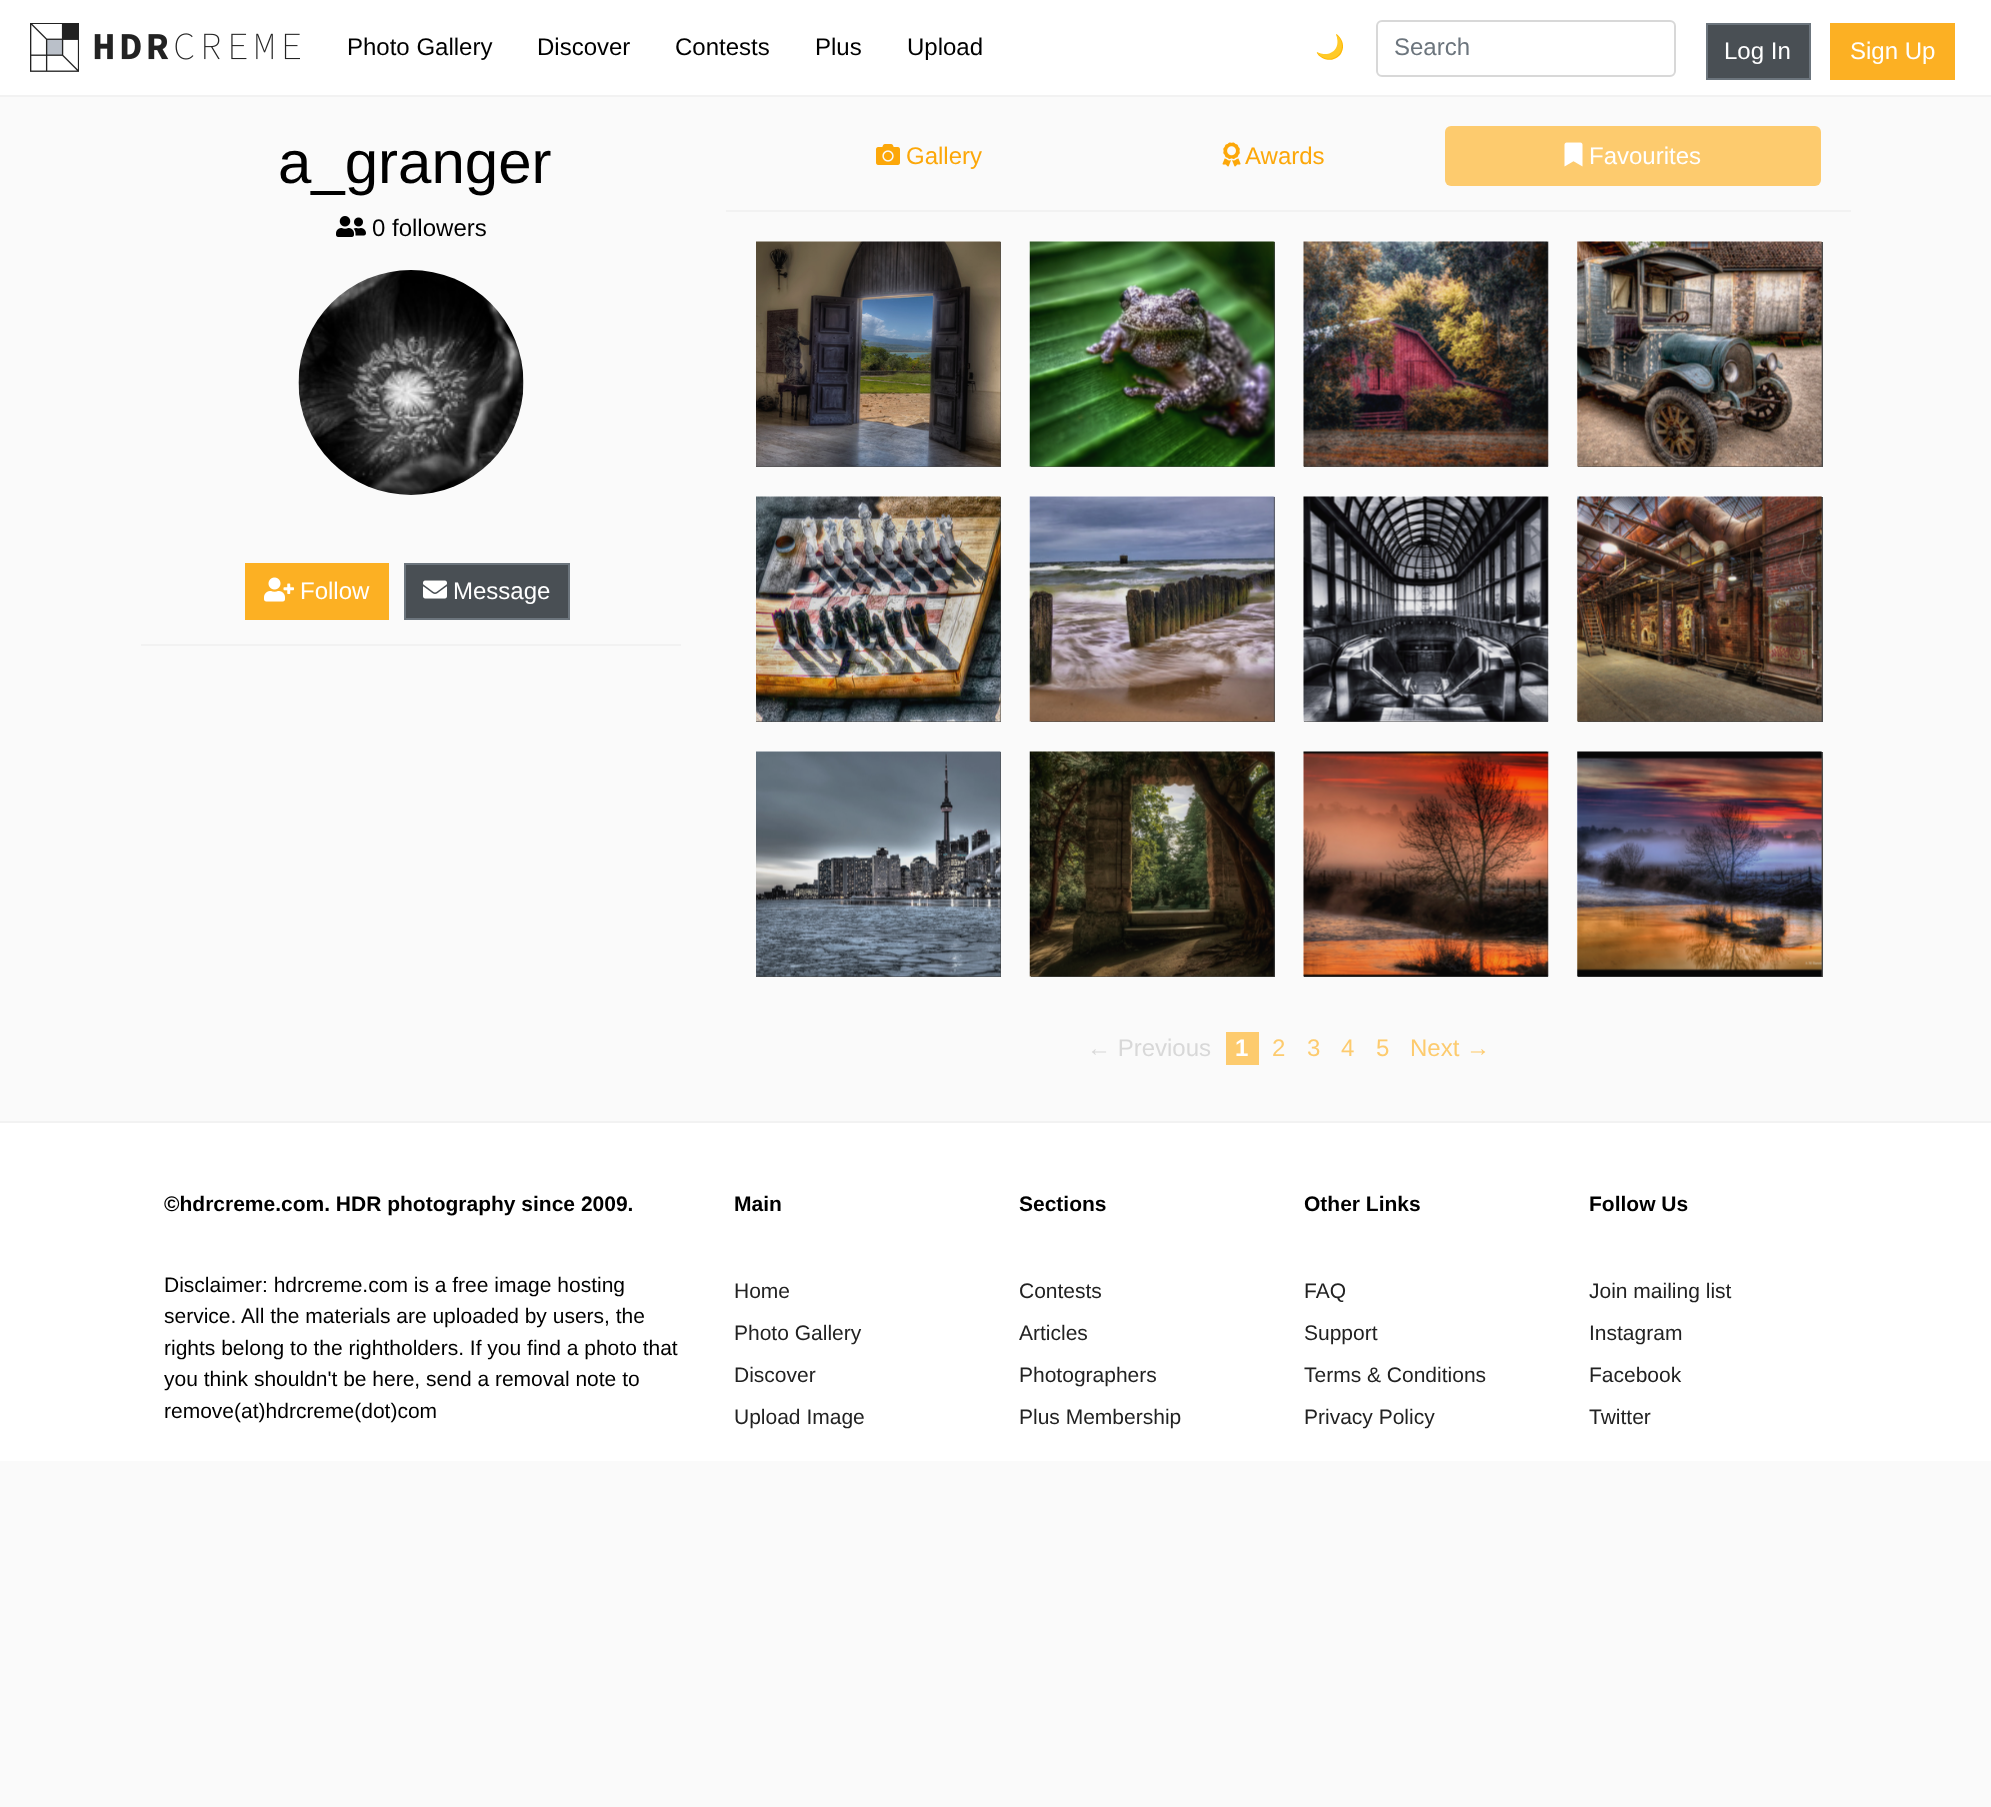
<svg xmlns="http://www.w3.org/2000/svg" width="1991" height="1807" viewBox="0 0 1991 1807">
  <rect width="100%" height="100%" fill="#fafafa"/>
  <path d="M0 0h1991v95H0z" fill="#fff"/>
  <path d="M0 95h1991v2H0z" fill="#f2f2f2"/>
  <image x="30" y="23" width="270" height="49" href="img/1.png"/>
  <rect x="1377" y="21" width="298" height="55" rx="5" fill="none" stroke="#d8d8d8" stroke-width="2"/>
  <path d="M1707 24h103v55H1707z" fill="#494f54" stroke="#6c757d" stroke-width="2"/>
  <path d="M1830 23h125v57H1830z" fill="#fcb023"/>
  <image x="336" y="216" width="30" height="21" href="img/2.png"/>
  <image x="298" y="270" width="226" height="225" href="img/3.png"/>
  <path d="M245 563h144v57H245z" fill="#fcb023"/>
  <image x="264" y="577" width="30" height="25" href="img/4.png"/>
  <path d="M405 564h164v55H405z" fill="#494f54" stroke="#6c757d" stroke-width="2"/>
  <image x="423" y="580" width="24" height="19" href="img/5.png"/>
  <path d="M141 644h540v2H141z" fill="#f2f2f2"/>
  <image x="876" y="144" width="24" height="21" href="img/6.png"/>
  <image x="1222" y="142" width="19" height="25" href="img/7.png"/>
  <rect x="1445" y="126" width="376" height="60" rx="6" fill="#fdcb6e"/>
  <image x="1564" y="142" width="19" height="25" href="img/8.png"/>
  <path d="M726 210h1125v2H726z" fill="#f2f2f2"/>
  <path d="M756 242h245v225H756z" fill="#4a4a4a"/>
  <image x="756" y="241" width="245" height="226" href="img/9.png"/>
  <path d="M1031 242h244v225H1031z" fill="#4a4a4a"/>
  <image x="1029" y="241" width="246" height="226" href="img/10.png"/>
  <path d="M1304 242h244v225H1304z" fill="#4a4a4a"/>
  <image x="1303" y="241" width="246" height="226" href="img/11.png"/>
  <path d="M1578 242h245v225H1578z" fill="#4a4a4a"/>
  <image x="1577" y="241" width="245" height="226" href="img/12.png"/>
  <path d="M756 497h245v225H756z" fill="#4a4a4a"/>
  <image x="756" y="496" width="245" height="226" href="img/13.png"/>
  <path d="M1031 497h244v225H1031z" fill="#4a4a4a"/>
  <image x="1029" y="496" width="246" height="226" href="img/14.png"/>
  <path d="M1304 497h244v225H1304z" fill="#4a4a4a"/>
  <image x="1303" y="496" width="246" height="226" href="img/15.png"/>
  <path d="M1578 497h245v225H1578z" fill="#4a4a4a"/>
  <image x="1577" y="496" width="245" height="226" href="img/16.png"/>
  <path d="M756 752h245v225H756z" fill="#4a4a4a"/>
  <image x="756" y="751" width="245" height="226" href="img/17.png"/>
  <path d="M1031 752h244v225H1031z" fill="#4a4a4a"/>
  <image x="1029" y="751" width="246" height="226" href="img/18.png"/>
  <path d="M1304 752h244v225H1304z" fill="#4a4a4a"/>
  <image x="1303" y="751" width="246" height="226" href="img/19.png"/>
  <path d="M1578 752h245v225H1578z" fill="#4a4a4a"/>
  <image x="1577" y="751" width="245" height="226" href="img/20.png"/>
  <path d="M1226 1032h33v33H1226z" fill="#fdcb6e"/>
  <path d="M0 1123h1991v338H0z" fill="#fff"/>
  <path d="M0 1121h1991v2H0z" fill="#f2f2f2"/>
  <g font-family="Liberation Sans" font-size="24" fill="#000">
    <text x="347" y="55">Photo Gallery</text>
    <text x="537" y="55">Discover</text>
    <text x="675" y="55">Contests</text>
    <text x="815" y="55">Plus</text>
    <text x="907" y="55">Upload</text>
  </g>
  <text x="1315" y="55" font-family="Noto Color Emoji" font-size="24" fill="#fca709">🌙</text>
  <text x="1394" y="55" font-family="Liberation Sans" font-size="24" fill="#6c757d">Search</text>
  <g font-family="Liberation Sans" font-size="24" fill="#fff">
    <text x="1724" y="59">Log In</text>
    <text x="1850" y="59">Sign Up</text>
  </g>
  <text x="278" y="183" font-family="Liberation Sans" font-size="60" fill="#000">a_granger</text>
  <text x="372" y="236" font-family="Liberation Sans" font-size="24" fill="#000">0 followers</text>
  <g font-family="Liberation Sans" font-size="24" fill="#fff">
    <text x="300" y="599">Follow</text>
    <text x="453" y="599">Message</text>
  </g>
  <g font-family="Liberation Sans" font-size="24" fill="#fca709">
    <text x="906" y="164">Gallery</text>
    <text x="1245" y="164">Awards</text>
  </g>
  <text x="1589" y="164" font-family="Liberation Sans" font-size="24" fill="#fff">Favourites</text>
  <text x="1087" y="1056" font-family="Liberation Sans" font-size="24" fill="#d8d8d8">← Previous</text>
  <text x="1235" y="1056" font-family="Liberation Sans" font-size="24" font-weight="bold" fill="#fff">1</text>
  <g font-family="Liberation Sans" font-size="24" fill="#fdcb6e">
    <text x="1272" y="1056">2</text>
    <text x="1307" y="1056">3</text>
    <text x="1341" y="1056">4</text>
    <text x="1376" y="1056">5</text>
    <text x="1410" y="1056">Next →</text>
  </g>
  <text x="164" y="1211" font-family="Liberation Sans" font-size="21" font-weight="bold" fill="#000">©hdrcreme.com. HDR photography since 2009.</text>
  <g font-family="Liberation Sans" font-size="21" fill="#000">
    <text x="164" y="1292">Disclaimer: hdrcreme.com is a free image hosting</text>
    <text x="164" y="1323">service. All the materials are uploaded by users, the</text>
    <text x="164" y="1355">rights belong to the rightholders. If you find a photo that</text>
    <text x="164" y="1386">you think shouldn't be here, send a removal note to</text>
    <text x="164" y="1418">remove(at)hdrcreme(dot)com</text>
  </g>
  <text x="734" y="1211" font-family="Liberation Sans" font-size="21" font-weight="bold" fill="#000">Main</text>
  <g font-family="Liberation Sans" font-size="21" fill="#222">
    <text x="734" y="1298">Home</text>
    <text x="734" y="1340">Photo Gallery</text>
    <text x="734" y="1382">Discover</text>
    <text x="734" y="1424">Upload Image</text>
  </g>
  <text x="1019" y="1211" font-family="Liberation Sans" font-size="21" font-weight="bold" fill="#000">Sections</text>
  <g font-family="Liberation Sans" font-size="21" fill="#222">
    <text x="1019" y="1298">Contests</text>
    <text x="1019" y="1340">Articles</text>
    <text x="1019" y="1382">Photographers</text>
    <text x="1019" y="1424">Plus Membership</text>
  </g>
  <text x="1304" y="1211" font-family="Liberation Sans" font-size="21" font-weight="bold" fill="#000">Other Links</text>
  <g font-family="Liberation Sans" font-size="21" fill="#222">
    <text x="1304" y="1298">FAQ</text>
    <text x="1304" y="1340">Support</text>
    <text x="1304" y="1382">Terms &amp; Conditions</text>
    <text x="1304" y="1424">Privacy Policy</text>
  </g>
  <text x="1589" y="1211" font-family="Liberation Sans" font-size="21" font-weight="bold" fill="#000">Follow Us</text>
  <g font-family="Liberation Sans" font-size="21" fill="#222">
    <text x="1589" y="1298">Join mailing list</text>
    <text x="1589" y="1340">Instagram</text>
    <text x="1589" y="1382">Facebook</text>
    <text x="1589" y="1424">Twitter</text>
  </g>
</svg>
